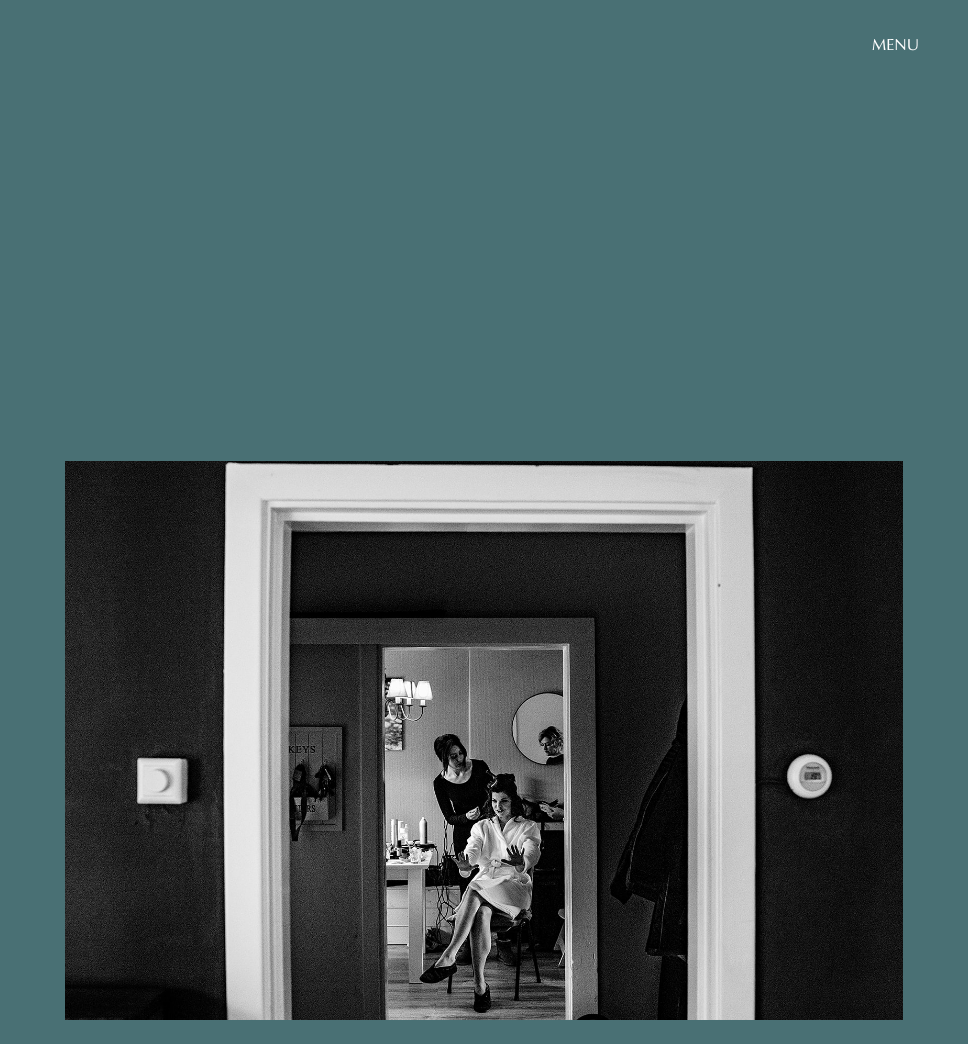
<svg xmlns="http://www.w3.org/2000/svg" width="968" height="1044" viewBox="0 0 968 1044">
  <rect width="100%" height="100%" fill="#497074"/>
  <image x="65" y="461" width="838" height="559" href="img/1.png"/>
  <text x="872" y="50" font-family="Optima" font-size="16" fill="#fff">MENU</text>
</svg>
